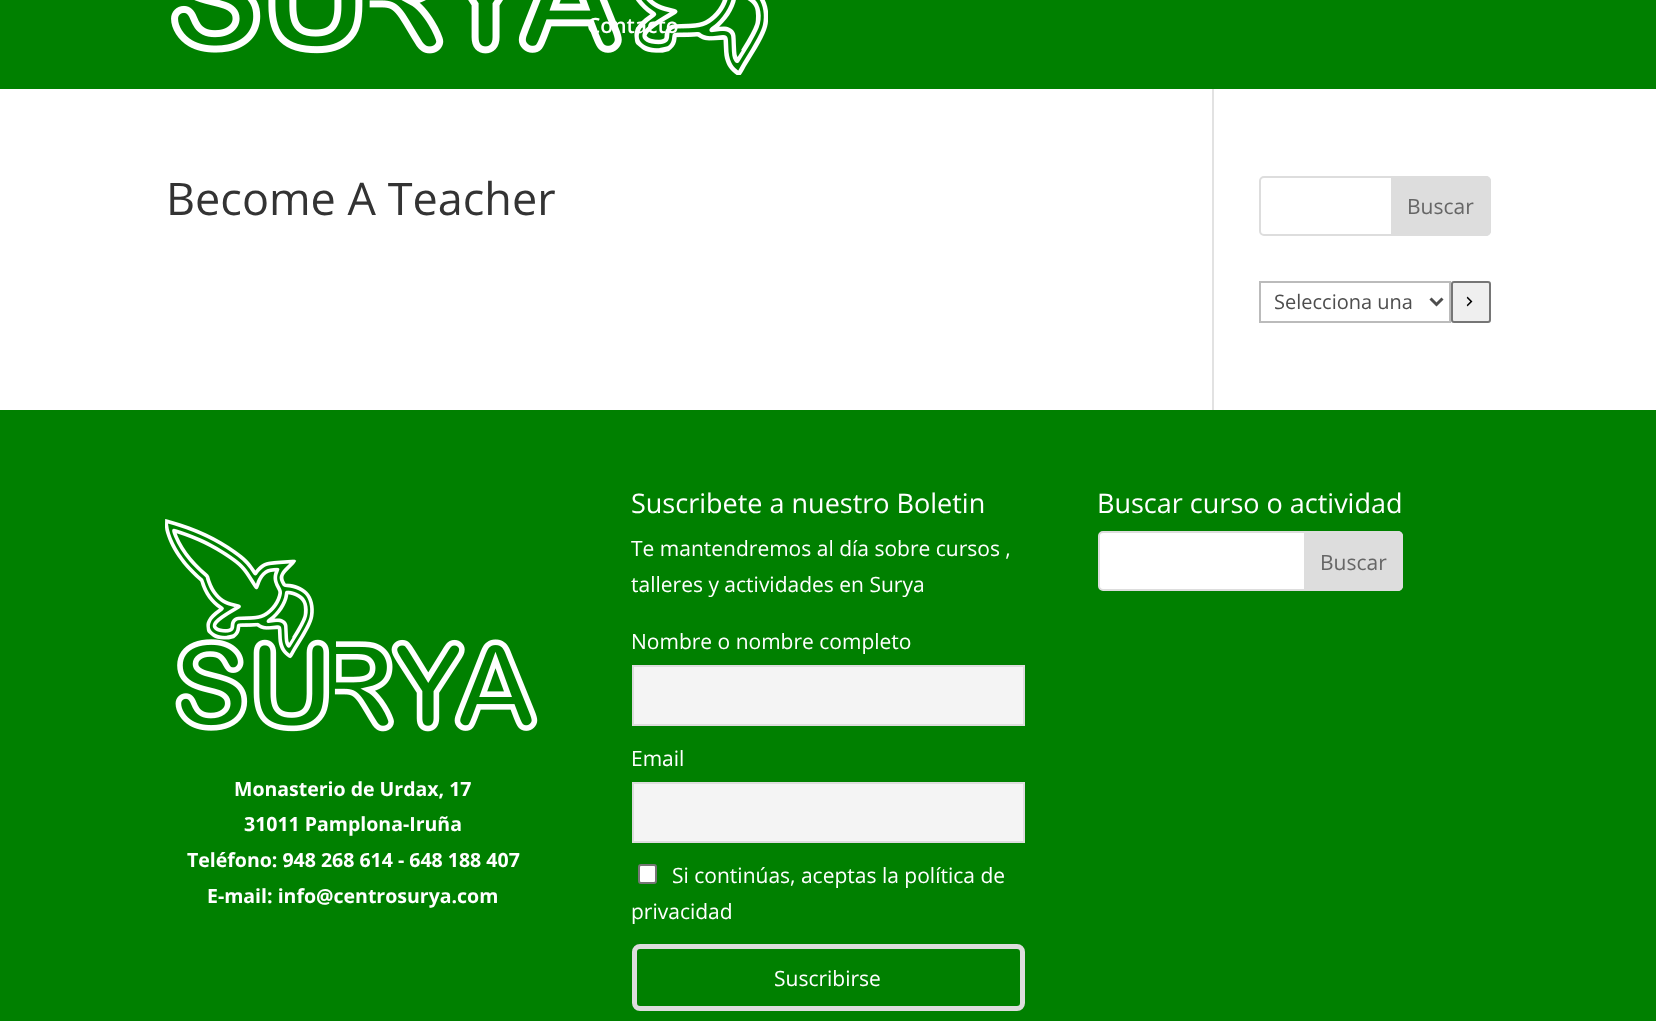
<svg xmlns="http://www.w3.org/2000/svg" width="1656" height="1021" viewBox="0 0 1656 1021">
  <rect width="100%" height="100%" fill="#fff"/>
  <path d="M0 0h1656v89H0z" fill="#008000"/>
  <image x="171" y="0" width="597" height="75" href="img/1.png"/>
  <path d="M1212 89h2v321H1212z" fill="#e2e2e2"/>
  <rect x="1260" y="177" width="230" height="58" rx="4" fill="none" stroke="#ddd" stroke-width="2"/>
  <path d="M1392 177H1486C1488 177 1490 179 1490 181V231C1490 233 1488 235 1486 235H1392Z" fill="#ddd" stroke="#ddd" stroke-width="2"/>
  <path d="M1260 282h190v40H1260z" fill="none" stroke="#bbb" stroke-width="2"/>
  <path d="M1430.5 298.5L1436.5 304.5L1442.5 298.5" fill="none" stroke="#4e4e4e" stroke-width="3"/>
  <rect x="1452" y="282" width="38" height="40" rx="2" fill="#efefef" stroke="#767676" stroke-width="2"/>
  <image x="1466" y="296" width="7" height="11" href="img/2.png"/>
  <path d="M0 410h1656v611H0z" fill="#008000"/>
  <path d="M633 666h391v59H633z" fill="#f4f4f4" stroke="#ddd" stroke-width="2"/>
  <path d="M633 783h391v59H633z" fill="#f4f4f4" stroke="#ddd" stroke-width="2"/>
  <rect x="639" y="865" width="17" height="18" rx="2" fill="#fff" stroke="#767676" stroke-width="2"/>
  <rect x="634.5" y="946.5" width="388" height="62" rx="5.5" fill="none" stroke="#ddd" stroke-width="5"/>
  <rect x="1099" y="532" width="303" height="58" rx="4" fill="#fff" stroke="#ddd" stroke-width="2"/>
  <path d="M1305 532H1398C1400 532 1402 534 1402 536V586C1402 588 1400 590 1398 590H1305Z" fill="#ddd" stroke="#ddd" stroke-width="2"/>
  <image x="165" y="519" width="373" height="213" href="img/3.png"/>
  <text x="587" y="33" font-family="Open Sans" font-size="21" font-weight="600" fill="#fff">Contacto</text>
  <text x="166" y="215" font-family="Open Sans" font-size="45" fill="#333">Become A Teacher</text>
  <text x="1407" y="214" font-family="Open Sans" font-size="21" fill="#666">Buscar</text>
  <text x="1274" y="309" font-family="Open Sans" font-size="20" fill="#4e4e4e">Selecciona una</text>
  <text x="631" y="513" font-family="Open Sans" font-size="27" fill="#fff">Suscribete a nuestro Boletin</text>
  <g font-family="Open Sans" font-size="21" fill="#fff">
    <text x="631" y="556">Te mantendremos al día sobre cursos ,</text>
    <text x="631" y="592">talleres y actividades en Surya</text>
    <text x="631" y="649">Nombre o nombre completo</text>
    <text x="631" y="766">Email</text>
    <text x="672" y="883">Si continúas, aceptas la política de</text>
    <text x="631" y="919">privacidad</text>
    <text x="774" y="986">Suscribirse</text>
  </g>
  <text x="1097" y="513" font-family="Open Sans" font-size="27" fill="#fff">Buscar curso o actividad</text>
  <text x="1320" y="570" font-family="Open Sans" font-size="21" fill="#666">Buscar</text>
  <g font-family="Open Sans" font-size="19.5" font-weight="bold" fill="#fff">
    <text x="234" y="796">Monasterio de Urdax, 17</text>
    <text x="244" y="831">31011 Pamplona-Iruña</text>
    <text x="187" y="867">Teléfono: 948 268 614 - 648 188 407</text>
    <text x="207" y="903">E-mail: info@centrosurya.com</text>
  </g>
</svg>
